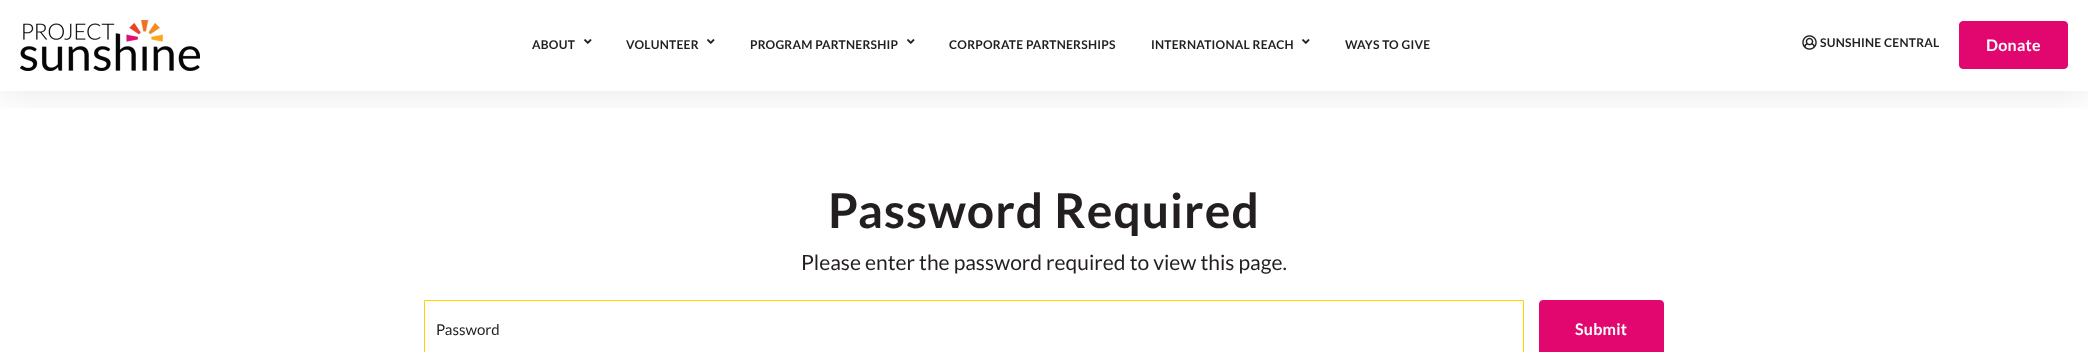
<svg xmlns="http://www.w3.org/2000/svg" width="2088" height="352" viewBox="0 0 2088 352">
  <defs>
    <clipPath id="clip1"><path d="M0 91h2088v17H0z"/></clipPath>
  </defs>
  <rect width="100%" height="100%" fill="#fff"/>
  <g clip-path="url(#clip1)">
    <path d="M0 0h2088v91H0z" fill="#0000001a" filter="blur(20px)"/>
  </g>
  <image x="20" y="20" width="180" height="51" href="img/1.png"/>
  <image x="584" y="39" width="8" height="5" href="img/2.png"/>
  <image x="707" y="39" width="8" height="5" href="img/2.png"/>
  <image x="907" y="39" width="8" height="5" href="img/2.png"/>
  <image x="1302" y="39" width="8" height="5" href="img/2.png"/>
  <image x="1802" y="35" width="15" height="15" href="img/3.png"/>
  <rect x="1959.5" y="21.5" width="108" height="47" rx="3.5" fill="#e2066f" stroke="#e2066f"/>
  <path d="M424.5 300.5h1099v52H424.5z" fill="none" stroke="#ffd100"/>
  <rect x="1539.5" y="300.5" width="124" height="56" rx="3.5" fill="#e2066f" stroke="#e2066f"/>
  <g font-family="Lato" font-size="12" font-weight="bold" letter-spacing="0.25" fill="#231f20">
    <text x="532" y="49">ABOUT</text>
    <text x="626" y="49">VOLUNTEER</text>
    <text x="750" y="49">PROGRAM PARTNERSHIP</text>
    <text x="949" y="49">CORPORATE PARTNERSHIPS</text>
    <text x="1151" y="49">INTERNATIONAL REACH</text>
    <text x="1345" y="49">WAYS TO GIVE</text>
    <text x="1820" y="47">SUNSHINE CENTRAL</text>
  </g>
  <text x="1986" y="51" font-family="Lato" font-size="16" font-weight="bold" letter-spacing="0.25" fill="#fff">Donate</text>
  <text x="828" y="228" font-family="Lato" font-size="48" font-weight="bold" letter-spacing="1" fill="#231f20">Password Required</text>
  <text x="801" y="270" font-family="Lato" font-size="21" fill="#231f20">Please enter the password required to view this page.</text>
  <text x="436" y="335" font-family="Lato" font-size="15" fill="#231f20">Password</text>
  <text x="1575" y="335" font-family="Lato" font-size="16" font-weight="bold" letter-spacing="0.25" fill="#fff">Submit</text>
</svg>
